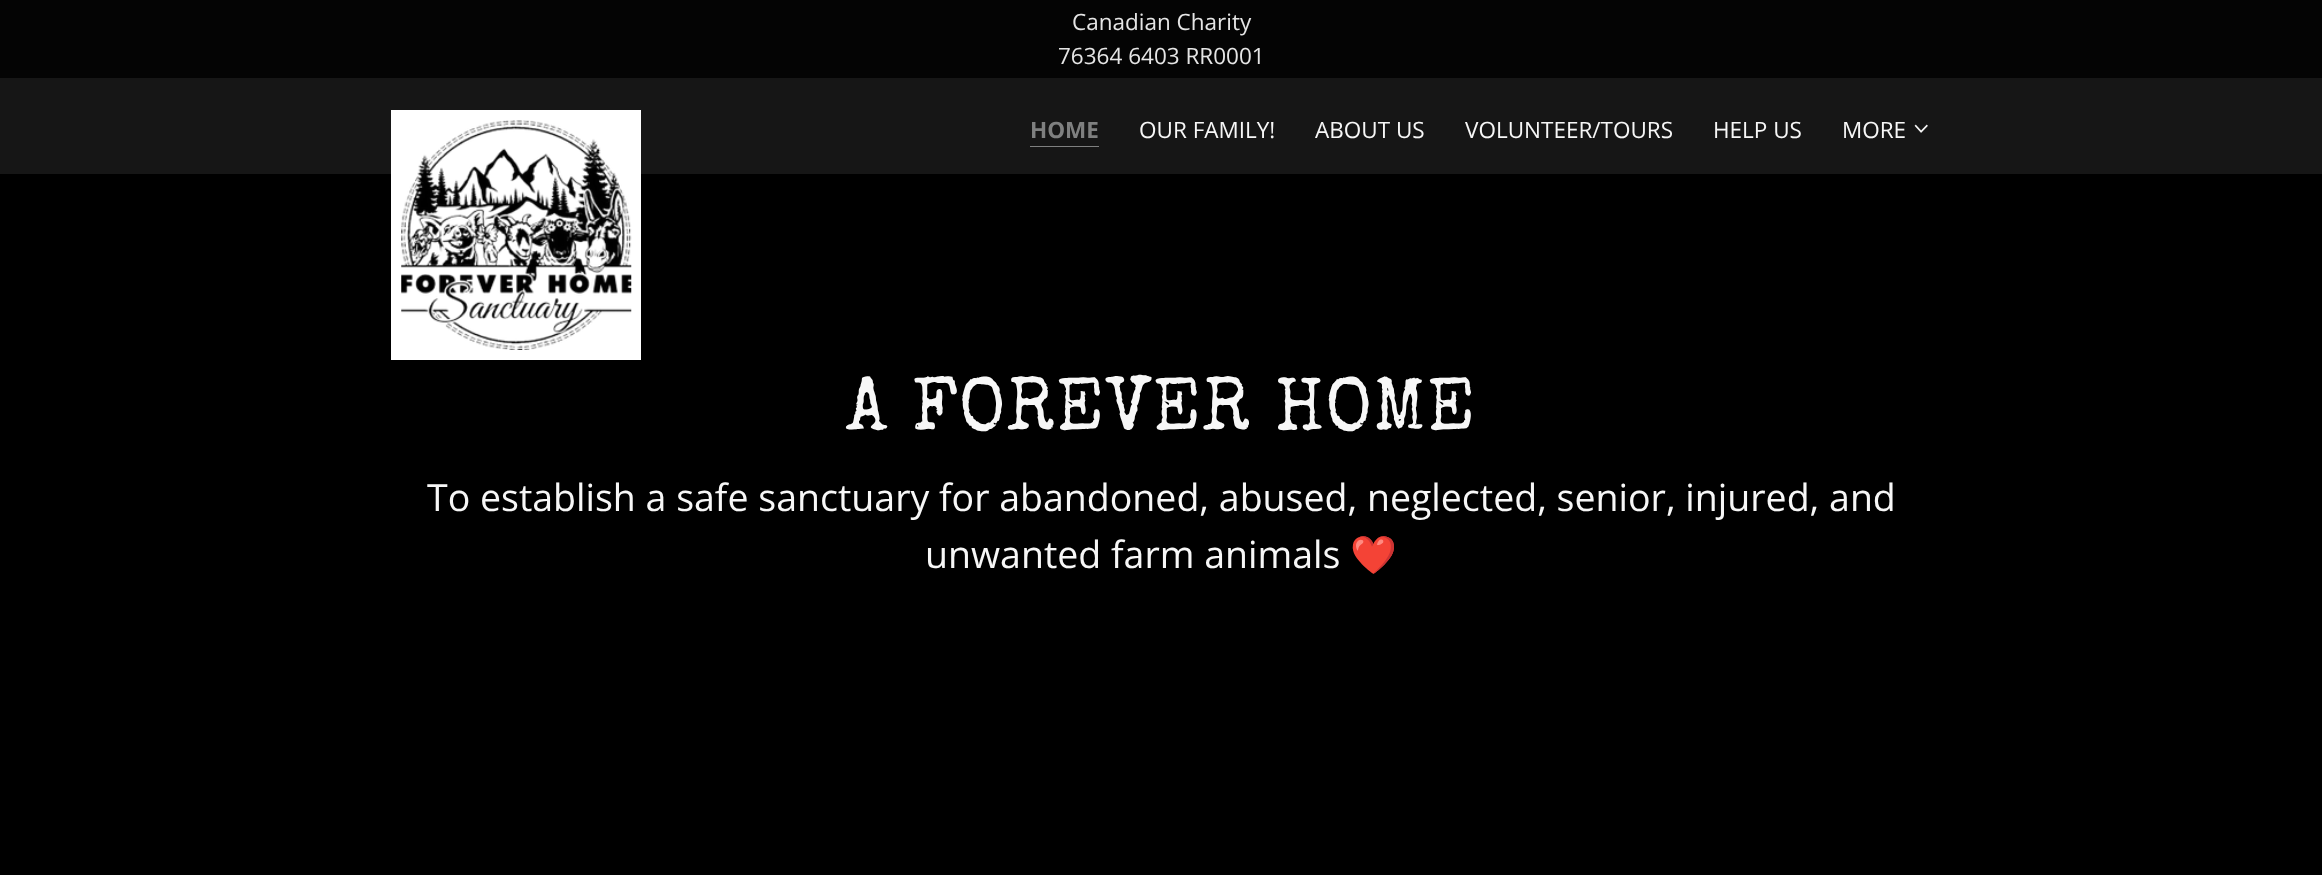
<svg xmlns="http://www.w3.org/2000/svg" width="2322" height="875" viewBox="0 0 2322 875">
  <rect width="100%" height="100%" fill="#161616"/>
  <path d="M0 0h2322v78H0z" fill="#040404"/>
  <path d="M0 174h2322v701H0z" fill="#000"/>
  <path d="M391 110h250v250H391z" fill="#fff"/>
  <image x="401" y="120" width="231" height="230" href="img/1.png"/>
  <path d="M1030 146h69v1H1030z" fill="#7f8080"/>
  <image x="1914" y="124" width="14" height="9" href="img/2.png"/>
  <g font-family="Open Sans" font-size="22.5" fill="#e5e5e5">
    <text x="1072" y="30">Canadian Charity</text>
    <text x="1058" y="64">76364 6403 RR0001</text>
  </g>
  <text x="1030" y="138" font-family="Open Sans" font-size="22.5" font-weight="bold" fill="#7f8080">HOME</text>
  <g font-family="Open Sans" font-size="22.5" fill="#f7f7f7">
    <text x="1139" y="138">OUR FAMILY!</text>
    <text x="1315" y="138">ABOUT US</text>
    <text x="1465" y="138">VOLUNTEER/TOURS</text>
    <text x="1713" y="138">HELP US</text>
    <text x="1842" y="138">MORE</text>
  </g>
  <text x="846" y="429" font-family="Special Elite" font-size="75" letter-spacing="1.5" fill="#f7f7f7">A FOREVER HOME</text>
  <g font-family="Open Sans" font-size="37.5" fill="#f7f7f7">
    <text x="427" y="511">To establish a safe sanctuary for abandoned, abused, neglected, senior, injured, and</text>
    <text x="925" y="568">unwanted farm animals</text>
  </g>
  <text x="1350" y="568" font-family="Noto Color Emoji" font-size="37.5" fill="#f7f7f7">❤️</text>
</svg>
